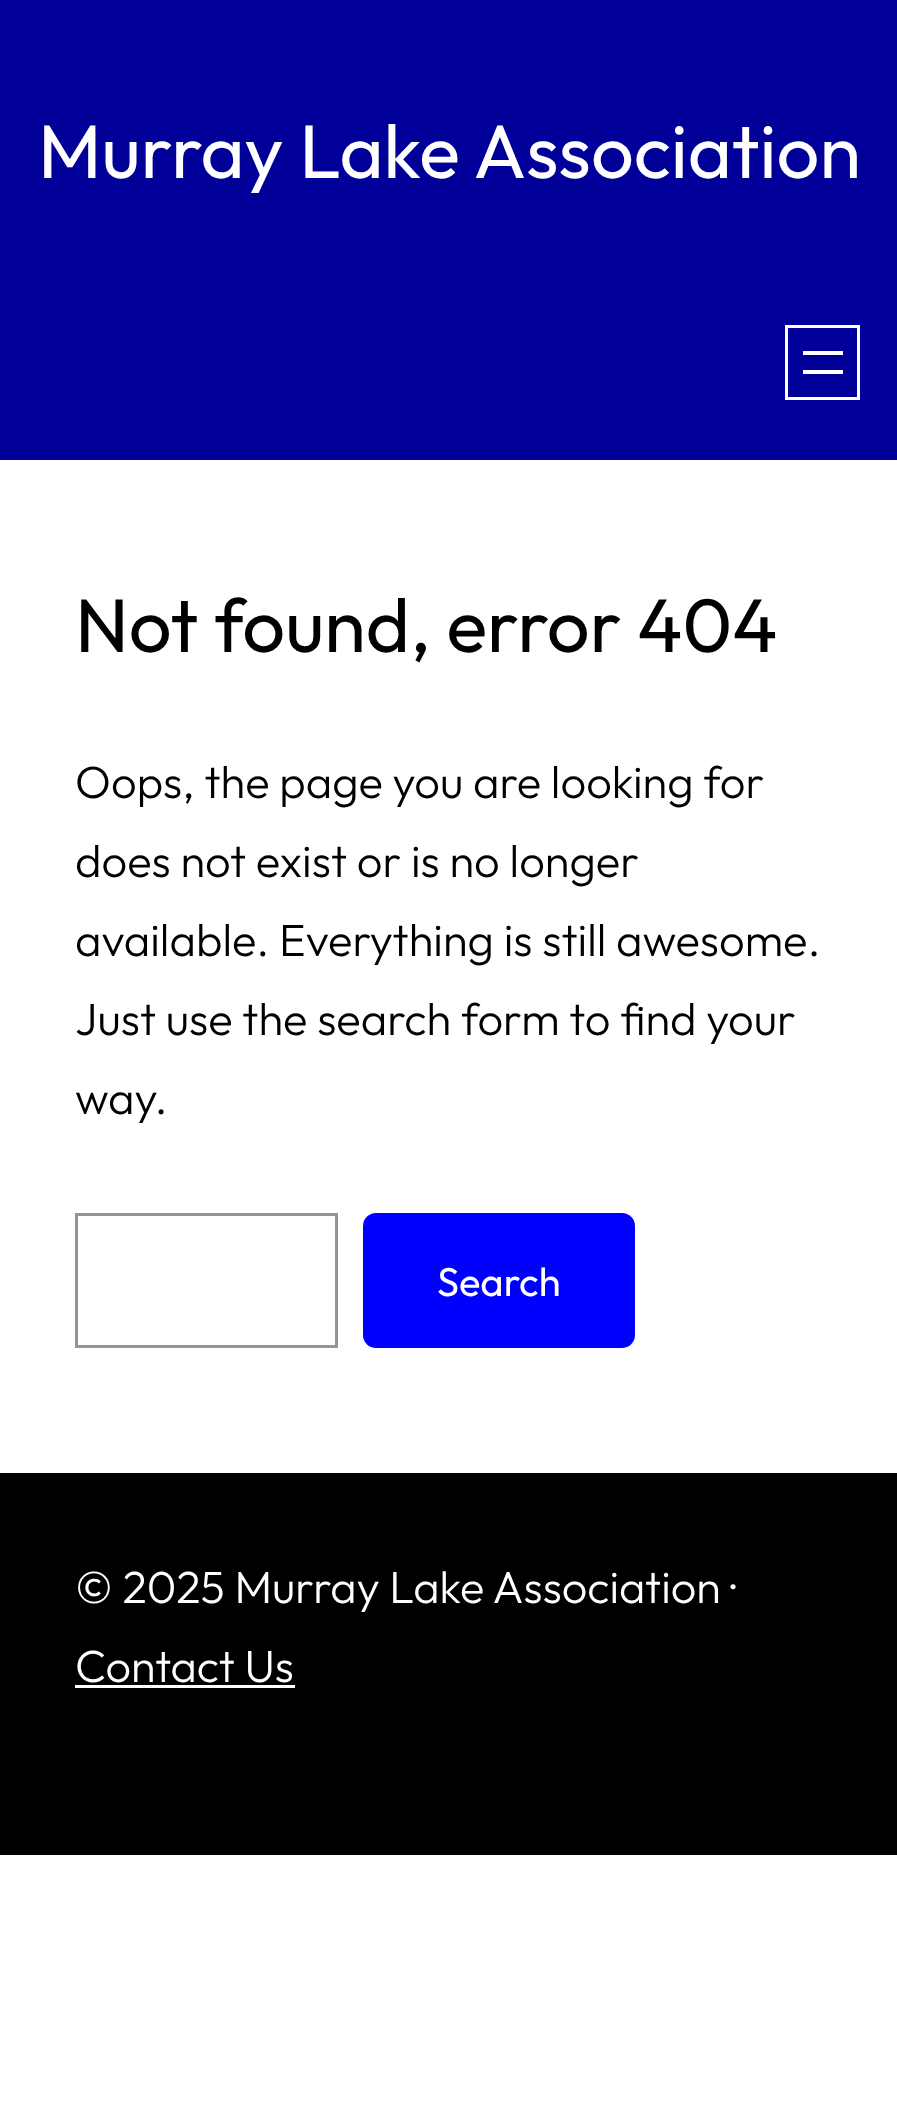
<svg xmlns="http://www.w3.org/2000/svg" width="897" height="2107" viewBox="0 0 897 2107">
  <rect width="100%" height="100%" fill="#fff"/>
  <path d="M0 0h897v460H0z" fill="#009"/>
  <path d="M786.5 326.5h72v72H786.5z" fill="none" stroke="#fff" stroke-width="3"/>
  <path d="M803 351h40v4H803z" fill="#fff"/>
  <path d="M803 370h40v4H803z" fill="#fff"/>
  <path d="M76.5 1214.5h260v132H76.5z" fill="none" stroke="#949494" stroke-width="3"/>
  <rect x="363" y="1213" width="272" height="135" rx="13" fill="#00f"/>
  <path d="M0 1473h897v382H0z" fill="#000"/>
  <path d="M75 1685h220v3H75z" fill="#fff"/>
  <text x="38" y="178" font-family="Outfit" font-size="75.75" fill="#fff">Murray Lake Association</text>
  <text x="75" y="652" font-family="Outfit" font-size="75.75" fill="#000">Not found, error 404</text>
  <g font-family="Outfit" font-size="45.25" font-weight="300" fill="#000">
    <text x="75" y="798">Oops, the page you are looking for</text>
    <text x="75" y="877">does not exist or is no longer</text>
    <text x="75" y="956">available. Everything is still awesome.</text>
    <text x="75" y="1035">Just use the search form to find your</text>
    <text x="75" y="1114">way.</text>
  </g>
  <text x="437" y="1296" font-family="Outfit" font-size="40" fill="#fff">Search</text>
  <g font-family="Outfit" font-size="45" font-weight="300" fill="#fff">
    <text x="75" y="1603">© 2025 Murray Lake Association ·</text>
    <text x="75" y="1682">Contact Us</text>
  </g>
</svg>
